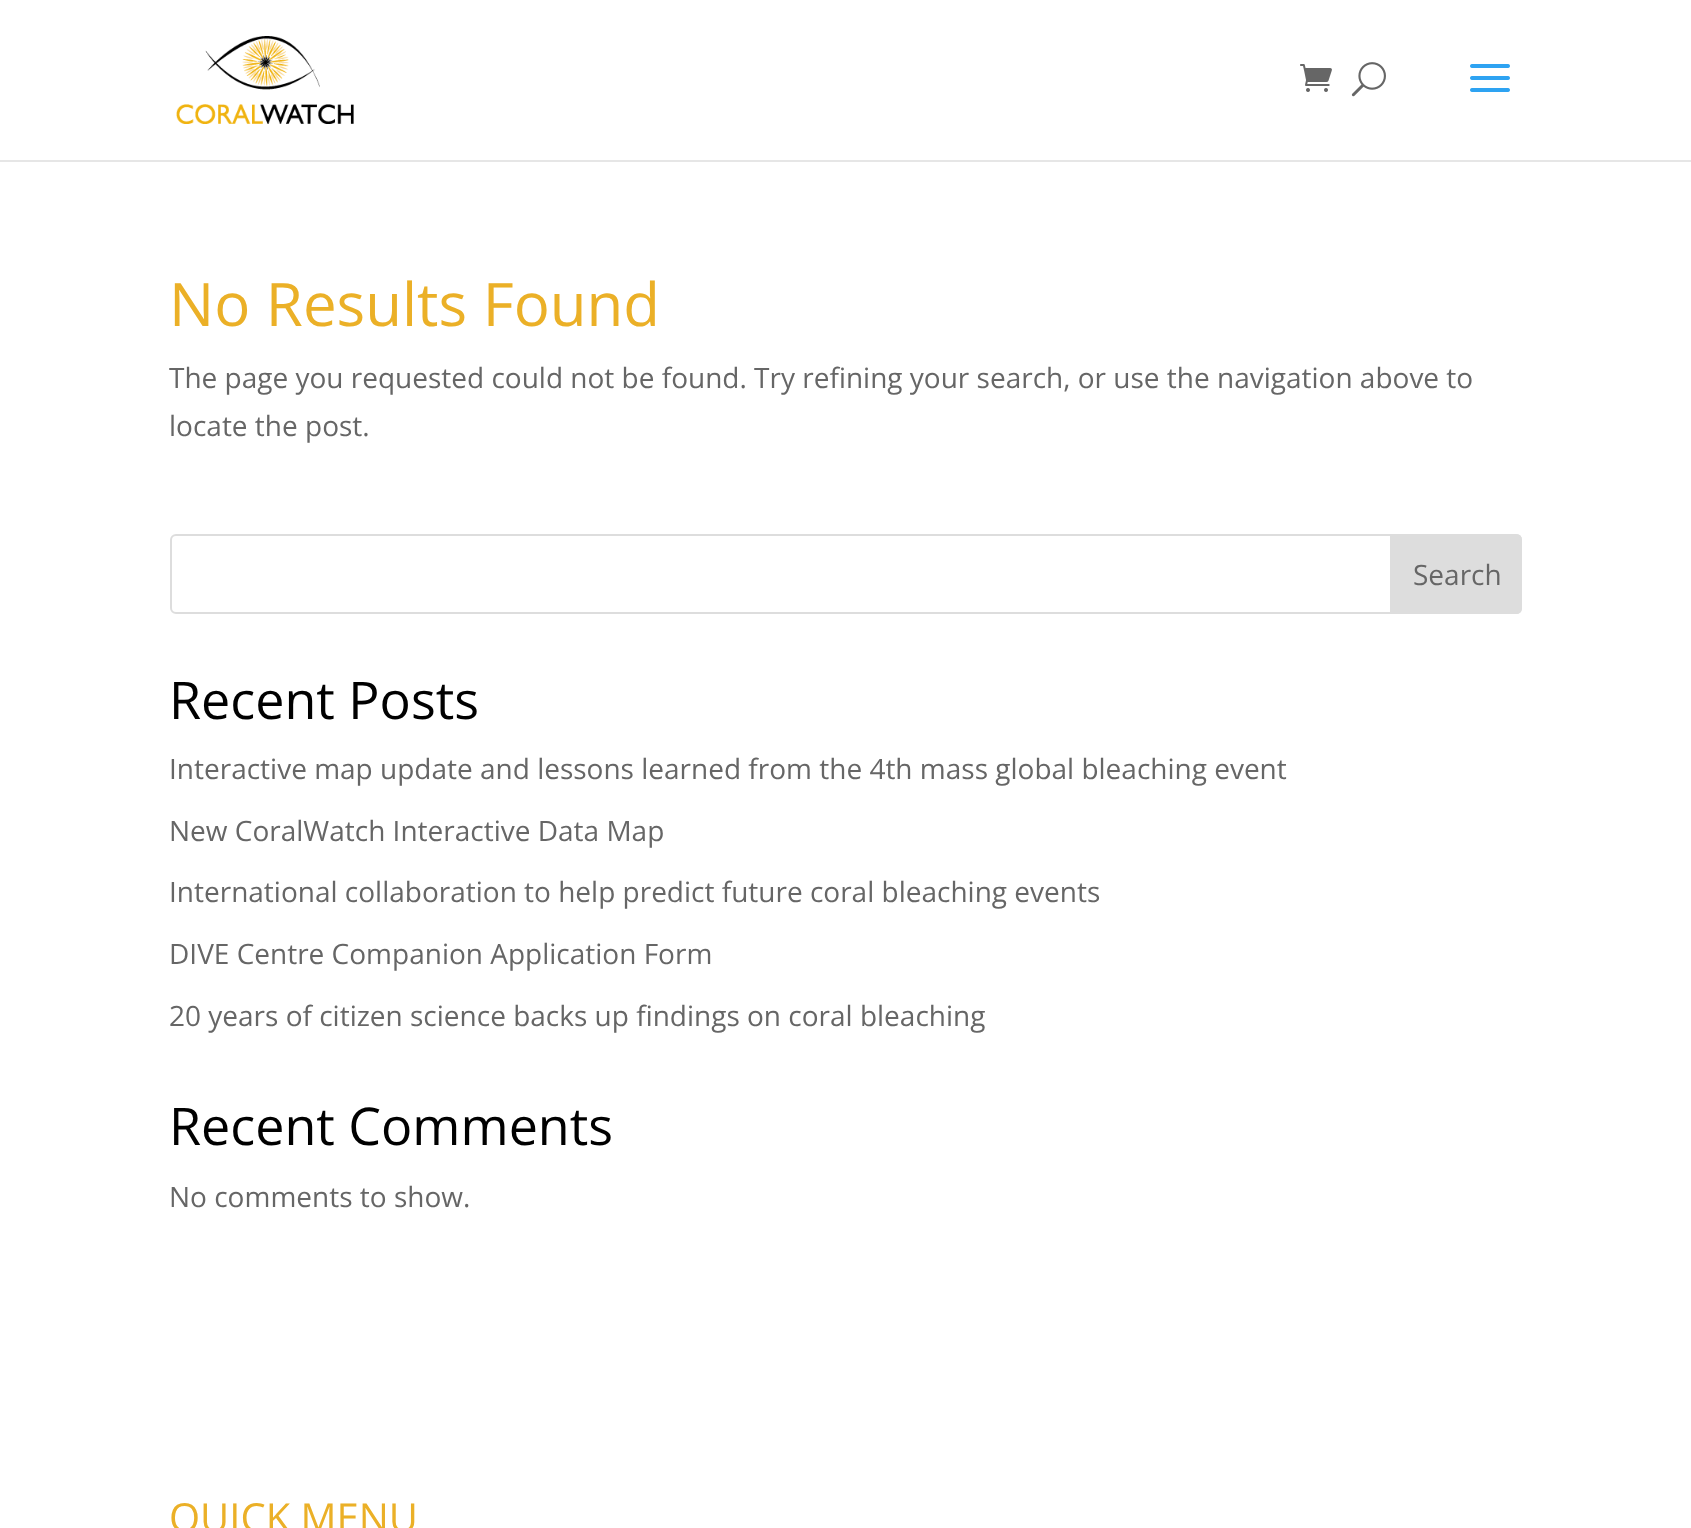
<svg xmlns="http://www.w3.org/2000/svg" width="1691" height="1528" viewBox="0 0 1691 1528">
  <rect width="100%" height="100%" fill="#fff"/>
  <path d="M0 160h1691v2H0z" fill="#e6e6e6"/>
  <image x="176" y="36" width="178" height="88" href="img/1.png"/>
  <image x="1300" y="64" width="32" height="28" href="img/2.png"/>
  <image x="1351" y="62" width="35" height="35" href="img/3.png"/>
  <image x="1470" y="64" width="40" height="28" href="img/4.png"/>
  <rect x="171" y="535" width="1350" height="78" rx="5" fill="none" stroke="#ddd" stroke-width="2"/>
  <path d="M1391 535H1516C1519 535 1521 537 1521 540V608C1521 611 1519 613 1516 613H1391Z" fill="#ddd" stroke="#ddd" stroke-width="2"/>
  <text x="169" y="326" font-family="Open Sans" font-size="60" fill="#ebb027">No Results Found</text>
  <g font-family="Open Sans" font-size="28" fill="#666">
    <text x="169" y="388">The page you requested could not be found. Try refining your search, or use the navigation above to</text>
    <text x="169" y="436">locate the post.</text>
    <text x="1413" y="585">Search</text>
  </g>
  <text x="169" y="719" font-family="Open Sans" font-size="52" fill="#000">Recent Posts</text>
  <g font-family="Open Sans" font-size="28" fill="#666">
    <text x="169" y="779">Interactive map update and lessons learned from the 4th mass global bleaching event</text>
    <text x="169" y="841">New CoralWatch Interactive Data Map</text>
    <text x="169" y="902">International collaboration to help predict future coral bleaching events</text>
    <text x="169" y="964">DIVE Centre Companion Application Form</text>
    <text x="169" y="1026">20 years of citizen science backs up findings on coral bleaching</text>
  </g>
  <text x="169" y="1145" font-family="Open Sans" font-size="52" fill="#000">Recent Comments</text>
  <text x="169" y="1207" font-family="Open Sans" font-size="28" fill="#666">No comments to show.</text>
  <text x="169" y="1532" font-family="Open Sans" font-size="40" fill="#ebb027">QUICK MENU</text>
</svg>
